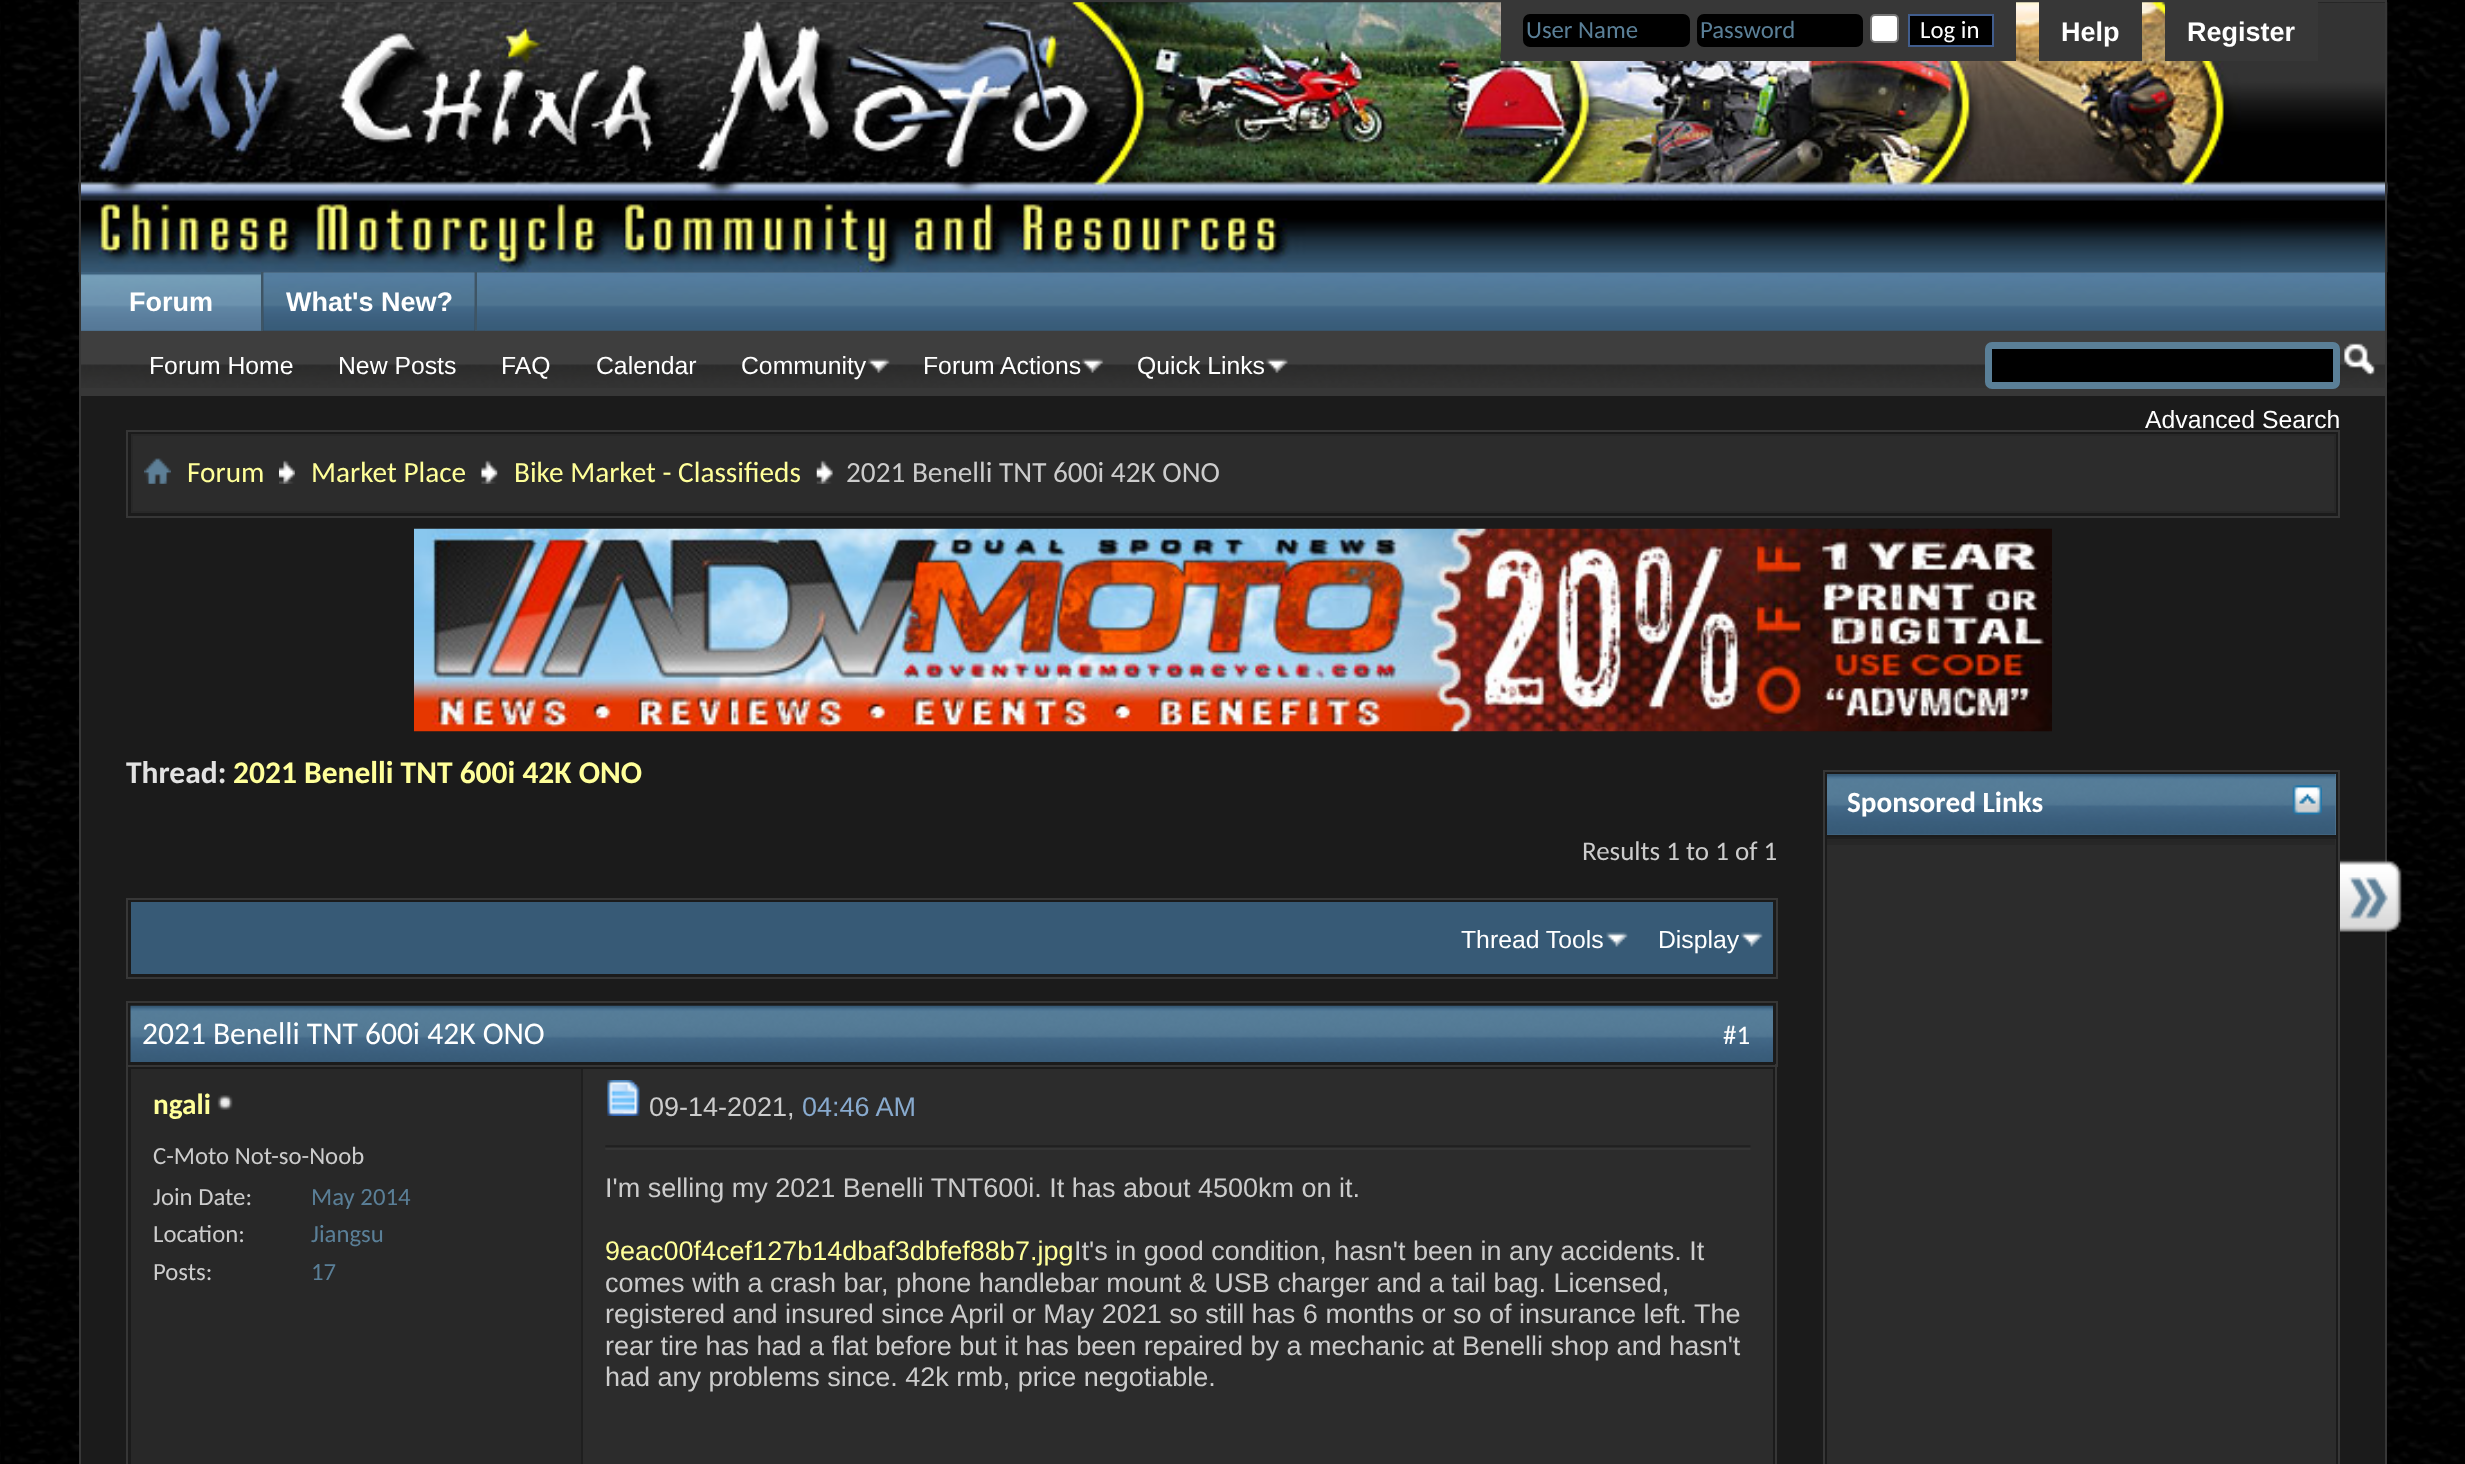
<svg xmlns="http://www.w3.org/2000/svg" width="2465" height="1464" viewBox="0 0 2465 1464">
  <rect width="100%" height="100%" fill="#fff"/>
  <image x="0" y="0" width="2465" height="1464" href="img/1.png"/>
  <image x="78" y="2" width="2310" height="271" href="img/2.png"/>
  <path d="M80 1h2306v392H80z" fill="none" stroke="#373737" stroke-width="2"/>
  <image x="81" y="2" width="2160" height="270" href="img/3.png"/>
  <path d="M1501 2h515v59H1501z" fill="#373737"/>
  <rect x="1523" y="14" width="167" height="33" rx="7" fill="#000"/>
  <rect x="1697" y="14" width="166" height="33" rx="7" fill="#000"/>
  <rect x="1871" y="15" width="27" height="27" rx="4" fill="#fff" stroke="#767676" stroke-width="2"/>
  <path d="M1909 15h84v31H1909z" fill="#000" stroke="#415d8d" stroke-width="2"/>
  <path d="M2039 2h103v59H2039z" fill="#373737"/>
  <path d="M2165 2h153v59H2165z" fill="#373737"/>
  <path d="M81 272h2304v120H81z" fill="#373737"/>
  <image x="81" y="272" width="2304" height="116" href="img/4.png"/>
  <image x="81" y="272" width="2304" height="59" href="img/5.png"/>
  <path d="M261 272h2v59H261z" fill="#3e5565"/>
  <image x="81" y="272" width="180" height="59" href="img/6.png"/>
  <path d="M475 272h2v59H475z" fill="#3e5565"/>
  <path d="M263 272h212v59H263z" fill="#373737"/>
  <image x="263" y="272" width="212" height="59" href="img/7.png"/>
  <image x="868" y="358" width="22" height="15" href="img/8.png"/>
  <image x="1081" y="358" width="23" height="15" href="img/9.png"/>
  <image x="1266" y="358" width="22" height="15" href="img/10.png"/>
  <rect x="1988.5" y="345.5" width="348" height="40" rx="3.5" fill="#000" stroke="#5a7f97" stroke-width="7"/>
  <image x="2344" y="343" width="31" height="33" href="img/11.png"/>
  <path d="M80 395h2306v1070H80z" fill="#1b1b1b" stroke="#373737" stroke-width="2"/>
  <path d="M127 431h2212v86H127z" fill="none" stroke="#363636" stroke-width="2"/>
  <path d="M132 435h2203v77H132z" fill="#2c2c2c" stroke="#282828" stroke-width="2"/>
  <image x="144" y="458" width="27" height="26" href="img/12.png"/>
  <image x="279" y="460" width="16" height="24" href="img/13.png"/>
  <image x="481" y="460" width="17" height="24" href="img/14.png"/>
  <image x="816" y="460" width="17" height="24" href="img/15.png"/>
  <image x="414" y="528" width="1638" height="204" href="img/16.png"/>
  <path d="M127 899h1650v79H127z" fill="none" stroke="#373737" stroke-width="2"/>
  <path d="M131 902h1642v72H131z" fill="#375a76"/>
  <image x="1606" y="932" width="22" height="15" href="img/17.png"/>
  <image x="1741" y="932" width="22" height="15" href="img/18.png"/>
  <path d="M127 1002h1650v64H127z" fill="none" stroke="#363636" stroke-width="2"/>
  <image x="130" y="1005" width="1643" height="57" href="img/19.png"/>
  <path d="M1775 1064h2v400H1775z" fill="#363636"/>
  <path d="M126 1064h2v400H126z" fill="#363636"/>
  <path d="M131 1069h450v395H131z" fill="#282828"/>
  <image x="217" y="1095" width="16" height="15" href="img/20.png"/>
  <path d="M583 1069h1190v395H583z" fill="#2c2c2c"/>
  <path d="M581 1069h2v395H581z" fill="#1f1f1f"/>
  <image x="607" y="1080" width="33" height="36" href="img/21.png"/>
  <image x="605" y="1145" width="1146" height="5" href="img/22.png"/>
  <path d="M1824 771h515v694H1824z" fill="none" stroke="#373737" stroke-width="2"/>
  <path d="M1827 774h509v61H1827z" fill="#5a7f97"/>
  <image x="1827" y="774" width="509" height="61" href="img/23.png"/>
  <image x="2292" y="785" width="30" height="30" href="img/24.png"/>
  <path d="M1827 839h509v625H1827z" fill="#2c2c2c"/>
  <image x="1827" y="839" width="508" height="6" href="img/25.png"/>
  <path d="M1827 837h509v2H1827z" fill="#1f1f1f"/>
  <image x="2340" y="859" width="62" height="75" href="img/26.png"/>
  <g font-family="Carlito" font-size="24.75" fill="#5a7f97">
    <text x="1526" y="38">User Name</text>
    <text x="1700" y="38">Password</text>
  </g>
  <text x="1920" y="38" font-family="Carlito" font-size="24.75" fill="#fff">Log in</text>
  <g font-family="Liberation Sans" font-size="27" font-weight="bold" fill="#fff">
    <text x="2061" y="41">Help</text>
    <text x="2187" y="41">Register</text>
    <text x="129" y="311">Forum</text>
    <text x="286" y="311">What's New?</text>
  </g>
  <g font-family="Liberation Sans" font-size="24.75" fill="#fff">
    <text x="149" y="374">Forum Home</text>
    <text x="338" y="374">New Posts</text>
    <text x="501" y="374">FAQ</text>
    <text x="596" y="374">Calendar</text>
    <text x="741" y="374">Community</text>
    <text x="923" y="374">Forum Actions</text>
    <text x="1137" y="374">Quick Links</text>
    <text x="2145" y="428">Advanced Search</text>
  </g>
  <g font-family="Carlito" font-size="29.25" fill="#ff9">
    <text x="187" y="482">Forum</text>
    <text x="311" y="482">Market Place</text>
    <text x="514" y="482">Bike Market - Classifieds</text>
  </g>
  <text x="846" y="482" font-family="Carlito" font-size="29.25" fill="#ccc">2021 Benelli TNT 600i 42K ONO</text>
  <text x="126" y="783" font-family="Carlito" font-size="31.5" font-weight="bold" fill="#e2e2e2">Thread:</text>
  <text x="233" y="783" font-family="Carlito" font-size="31.5" font-weight="bold" fill="#ff9">2021 Benelli TNT 600i 42K ONO</text>
  <text x="1582" y="860" font-family="Carlito" font-size="27" fill="#ccc">Results 1 to 1 of 1</text>
  <g font-family="Liberation Sans" font-size="24.75" fill="#fff">
    <text x="1461" y="948">Thread Tools</text>
    <text x="1658" y="948">Display</text>
  </g>
  <text x="142" y="1044" font-family="Carlito" font-size="31.5" fill="#fff">2021 Benelli TNT 600i 42K ONO</text>
  <text x="1723" y="1044" font-family="Carlito" font-size="27" fill="#fff">#1</text>
  <text x="153" y="1114" font-family="Carlito" font-size="29.25" font-weight="bold" fill="#ff9">ngali</text>
  <g font-family="Carlito" font-size="24.75" fill="#ccc">
    <text x="153" y="1164">C-Moto Not-so-Noob</text>
    <text x="153" y="1205">Join Date:</text>
  </g>
  <text x="311" y="1205" font-family="Carlito" font-size="24.75" fill="#5a7f97">May 2014</text>
  <text x="153" y="1242" font-family="Carlito" font-size="24.75" fill="#ccc">Location:</text>
  <text x="311" y="1242" font-family="Carlito" font-size="24.75" fill="#5a7f97">Jiangsu</text>
  <text x="153" y="1280" font-family="Carlito" font-size="24.75" fill="#ccc">Posts:</text>
  <text x="311" y="1280" font-family="Carlito" font-size="24.75" fill="#5a7f97">17</text>
  <text x="649" y="1116" font-family="Liberation Sans" font-size="27" fill="#ccc">09-14-2021,</text>
  <text x="802" y="1116" font-family="Liberation Sans" font-size="27" fill="#88aace">04:46 AM</text>
  <text x="605" y="1197" font-family="Liberation Sans" font-size="27" fill="#ccc">I'm selling my 2021 Benelli TNT600i. It has about 4500km on it.</text>
  <text x="605" y="1260" font-family="Liberation Sans" font-size="27" fill="#ff9">9eac00f4cef127b14dbaf3dbfef88b7.jpg</text>
  <g font-family="Liberation Sans" font-size="27" fill="#ccc">
    <text x="1074" y="1260">It's in good condition, hasn't been in any accidents. It</text>
    <text x="605" y="1292">comes with a crash bar, phone handlebar mount &amp; USB charger and a tail bag. Licensed,</text>
    <text x="605" y="1323">registered and insured since April or May 2021 so still has 6 months or so of insurance left. The</text>
    <text x="605" y="1355">rear tire has had a flat before but it has been repaired by a mechanic at Benelli shop and hasn't</text>
    <text x="605" y="1386">had any problems since. 42k rmb, price negotiable.</text>
  </g>
  <text x="1847" y="812" font-family="Carlito" font-size="29.25" font-weight="bold" fill="#fff">Sponsored Links</text>
</svg>
